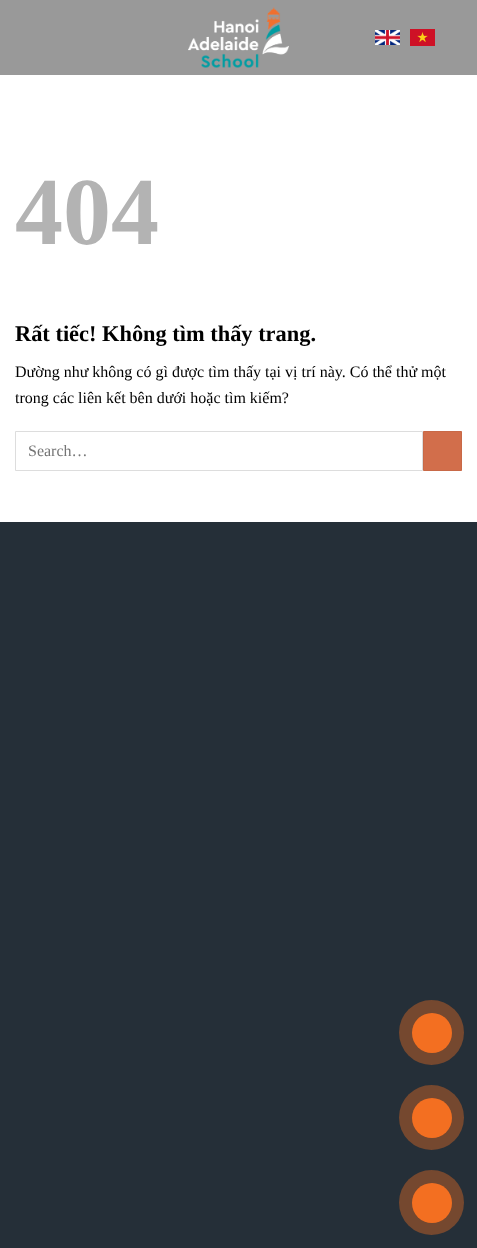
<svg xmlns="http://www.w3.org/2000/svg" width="477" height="1248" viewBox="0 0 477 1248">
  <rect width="100%" height="100%" fill="#fff"/>
  <path d="M0 0h477v75H0z" fill="#999"/>
  <image x="188" y="7" width="101" height="61" href="img/1.png"/>
  <image x="375" y="30" width="25" height="15" href="img/2.png"/>
  <image x="410" y="29" width="25" height="17" href="img/3.png"/>
  <path d="M15.5 431.5h407v39H15.5z" fill="none" stroke="#ddd"/>
  <path d="M423.5 431.5h38v39H423.5z" fill="#d26e4b" stroke="#c86947"/>
  <path d="M0 522h477v726H0z" fill="#252f38"/>
  <circle cx="431.5" cy="1032.5" r="32.5" fill="#75482f"/>
  <circle cx="432" cy="1033" r="20" fill="#f36f21"/>
  <circle cx="431.5" cy="1117.5" r="32.5" fill="#75482f"/>
  <circle cx="432" cy="1118" r="20" fill="#f36f21"/>
  <circle cx="431.5" cy="1202.5" r="32.5" fill="#75482f"/>
  <circle cx="432" cy="1203" r="20" fill="#f36f21"/>
  <text x="15" y="244" font-family="Liberation Serif" font-size="96" font-weight="bold" fill="#b3b3b3">404</text>
  <text x="15" y="341" font-family="Liberation Serif" font-size="22.4" font-weight="bold" fill="#000">Rất tiếc! Không tìm thấy trang.</text>
  <g font-family="Liberation Serif" font-size="16" fill="#000">
    <text x="15" y="377">Dường như không có gì được tìm thấy tại vị trí này. Có thể thử một</text>
    <text x="15" y="403">trong các liên kết bên dưới hoặc tìm kiếm?</text>
  </g>
  <text x="28" y="456" font-family="Liberation Serif" font-size="16" fill="#757575">Search…</text>
</svg>
